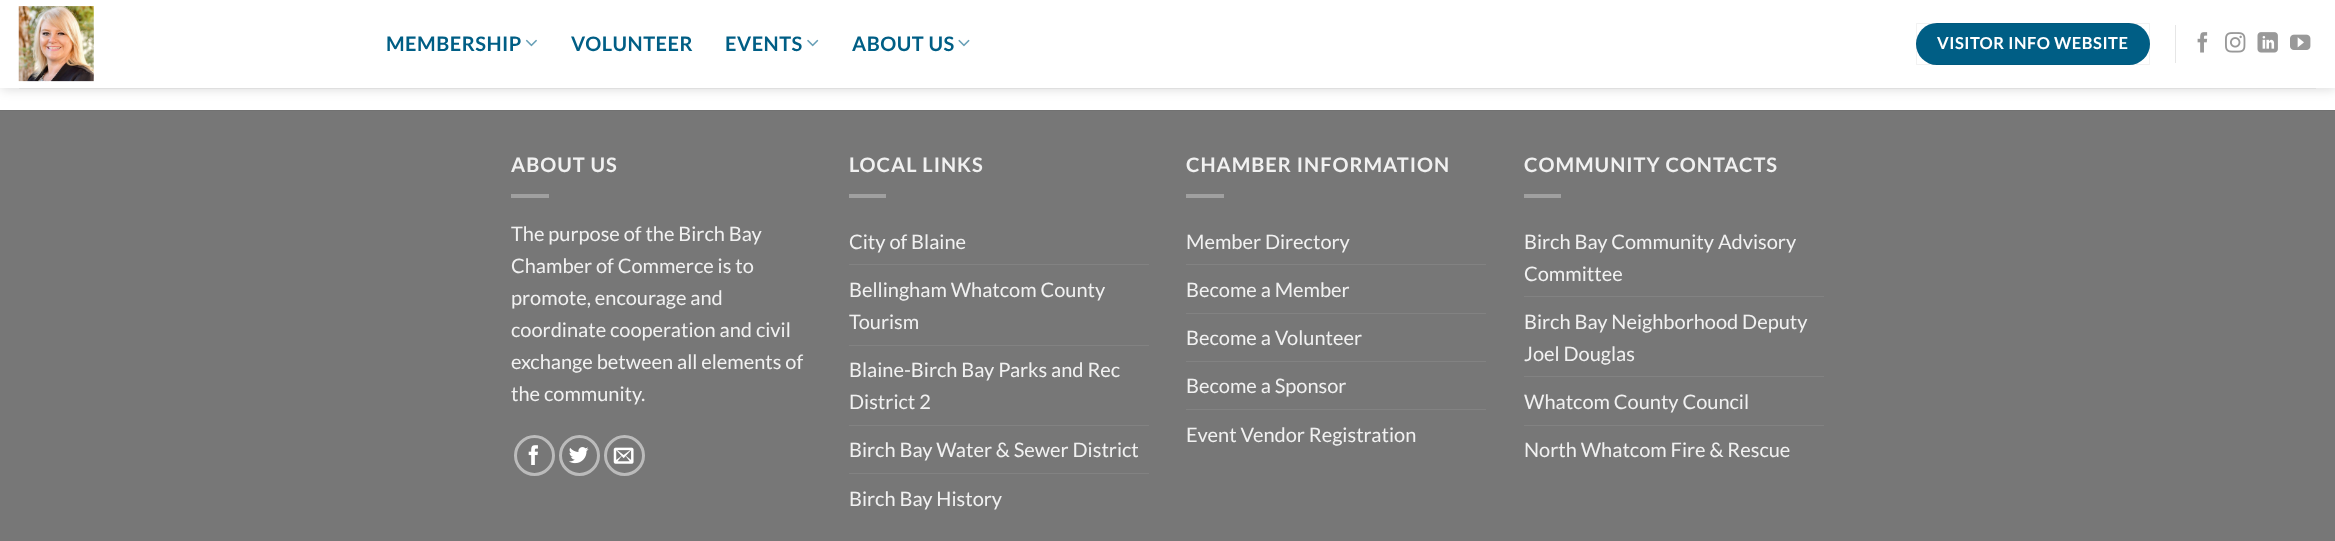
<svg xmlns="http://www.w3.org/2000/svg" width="2335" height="541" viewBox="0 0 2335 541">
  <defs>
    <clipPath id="clip1"><path d="M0 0H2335V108H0ZM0 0H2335V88H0Z" clip-rule="evenodd"/></clipPath>
  </defs>
  <rect width="100%" height="100%" fill="#fff"/>
  <g clip-path="url(#clip1)">
    <path d="M1 1h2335v88H1z" fill="#00000026" filter="blur(6px)"/>
  </g>
  <image x="18" y="6" width="76" height="76" href="img/1.png"/>
  <image x="525" y="39" width="12" height="8" href="img/2.png"/>
  <image x="807" y="39" width="12" height="8" href="img/3.png"/>
  <image x="958" y="39" width="12" height="8" href="img/4.png"/>
  <rect x="1916" y="23" width="234" height="42" rx="21" fill="#005e85"/>
  <path d="M1916.5 23.5h233v41H1916.5z" fill="none" stroke="#0000000d"/>
  <path d="M2175 25h1v38H2175z" fill="#e6e6e6"/>
  <image x="2197" y="32" width="11" height="21" href="img/5.png"/>
  <image x="2225" y="32" width="21" height="21" href="img/6.png"/>
  <image x="2257" y="32" width="21" height="21" href="img/7.png"/>
  <image x="2290" y="34" width="21" height="16" href="img/8.png"/>
  <path d="M19 88h2297v1H19z" fill="#dfdfdf"/>
  <path d="M0 87h2335v1H0z" fill="#ffffffe6"/>
  <path d="M0 111h2335v430H0z" fill="#777"/>
  <path d="M0 110h2335v1H0z" fill="#717171"/>
  <path d="M511 194h38v4H511z" fill="#a0a0a0"/>
  <circle cx="534.5" cy="455.5" r="19" fill="none" stroke="#bbb" stroke-width="3"/>
  <image x="528" y="445" width="10" height="20" href="img/9.png"/>
  <circle cx="579.5" cy="455.5" r="19" fill="none" stroke="#bbb" stroke-width="3"/>
  <image x="569" y="447" width="20" height="17" href="img/10.png"/>
  <circle cx="624.5" cy="455.5" r="19" fill="none" stroke="#bbb" stroke-width="3"/>
  <image x="613" y="447" width="21" height="17" href="img/11.png"/>
  <path d="M849 194h37v4H849z" fill="#a0a0a0"/>
  <path d="M849 264h300v1H849z" fill="#828282"/>
  <path d="M849 345h300v1H849z" fill="#828282"/>
  <path d="M849 425h300v1H849z" fill="#828282"/>
  <path d="M849 473h300v1H849z" fill="#828282"/>
  <path d="M1186 194h38v4H1186z" fill="#a0a0a0"/>
  <path d="M1186 264h300v1H1186z" fill="#828282"/>
  <path d="M1186 313h300v1H1186z" fill="#828282"/>
  <path d="M1186 361h300v1H1186z" fill="#828282"/>
  <path d="M1186 409h300v1H1186z" fill="#828282"/>
  <path d="M1524 194h37v4H1524z" fill="#a0a0a0"/>
  <path d="M1524 296h300v1H1524z" fill="#828282"/>
  <path d="M1524 376h300v1H1524z" fill="#828282"/>
  <path d="M1524 425h300v1H1524z" fill="#828282"/>
  <g font-family="Lato" font-size="20" font-weight="bold" letter-spacing="0.5" fill="#005e85">
    <text x="386" y="51">MEMBERSHIP</text>
    <text x="571" y="51">VOLUNTEER</text>
    <text x="725" y="51">EVENTS</text>
    <text x="852" y="51">ABOUT US</text>
  </g>
  <text x="1937" y="49" font-family="Lato" font-size="16.5" font-weight="bold" letter-spacing="0.5" fill="#fff">VISITOR INFO WEBSITE</text>
  <text x="511" y="172" font-family="Lato" font-size="20" font-weight="bold" letter-spacing="1" fill="#f1f1f1">ABOUT US</text>
  <g font-family="Lato" font-size="20" fill="#f1f1f1">
    <text x="511" y="241">The purpose of the Birch Bay</text>
    <text x="511" y="273">Chamber of Commerce is to</text>
    <text x="511" y="305">promote, encourage and</text>
    <text x="511" y="337">coordinate cooperation and civil</text>
    <text x="511" y="369">exchange between all elements of</text>
    <text x="511" y="401">the community.</text>
  </g>
  <text x="849" y="172" font-family="Lato" font-size="20" font-weight="bold" letter-spacing="1" fill="#f1f1f1">LOCAL LINKS</text>
  <g font-family="Lato" font-size="20" fill="#f1f1f1">
    <text x="849" y="249">City of Blaine</text>
    <text x="849" y="297">Bellingham Whatcom County</text>
    <text x="849" y="329">Tourism</text>
    <text x="849" y="377">Blaine-Birch Bay Parks and Rec</text>
    <text x="849" y="409">District 2</text>
    <text x="849" y="457">Birch Bay Water &amp; Sewer District</text>
    <text x="849" y="506">Birch Bay History</text>
  </g>
  <text x="1186" y="172" font-family="Lato" font-size="20" font-weight="bold" letter-spacing="1" fill="#f1f1f1">CHAMBER INFORMATION</text>
  <g font-family="Lato" font-size="20" fill="#f1f1f1">
    <text x="1186" y="249">Member Directory</text>
    <text x="1186" y="297">Become a Member</text>
    <text x="1186" y="345">Become a Volunteer</text>
    <text x="1186" y="393">Become a Sponsor</text>
    <text x="1186" y="442">Event Vendor Registration</text>
  </g>
  <text x="1524" y="172" font-family="Lato" font-size="20" font-weight="bold" letter-spacing="1" fill="#f1f1f1">COMMUNITY CONTACTS</text>
  <g font-family="Lato" font-size="20" fill="#f1f1f1">
    <text x="1524" y="249">Birch Bay Community Advisory</text>
    <text x="1524" y="281">Committee</text>
    <text x="1524" y="329">Birch Bay Neighborhood Deputy</text>
    <text x="1524" y="361">Joel Douglas</text>
    <text x="1524" y="409">Whatcom County Council</text>
    <text x="1524" y="457">North Whatcom Fire &amp; Rescue</text>
  </g>
</svg>
